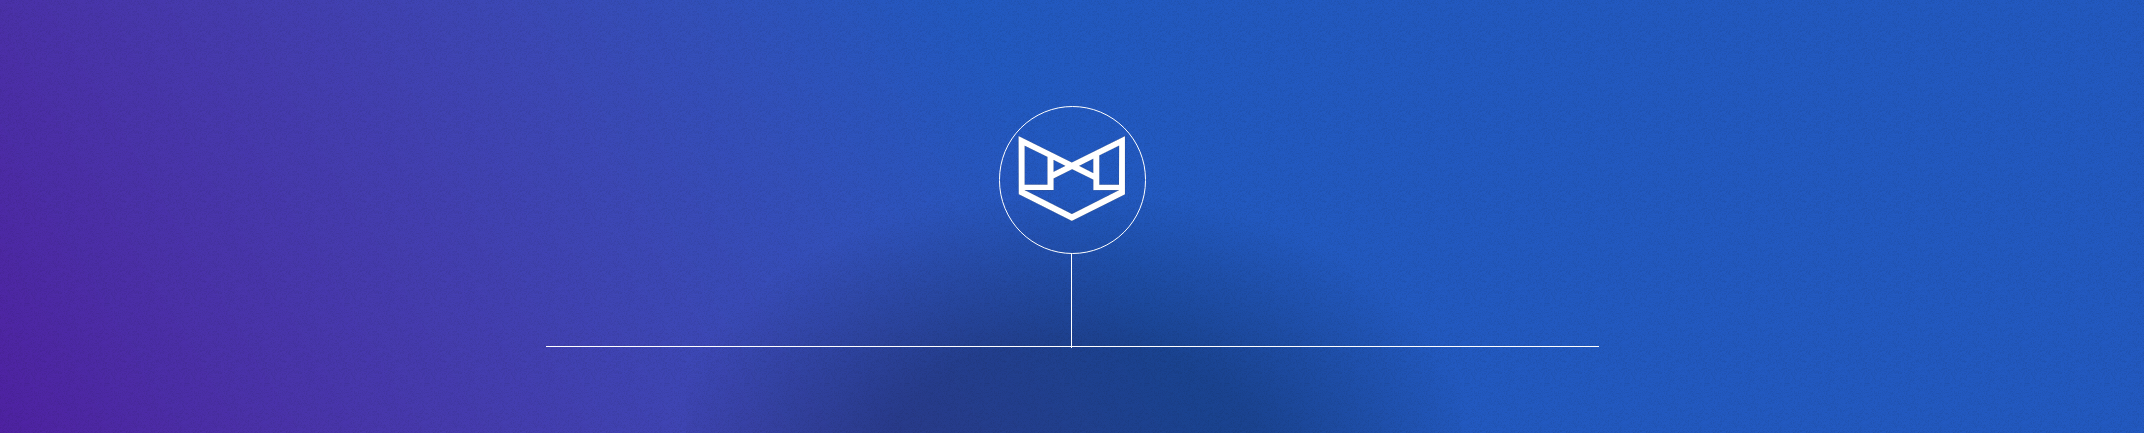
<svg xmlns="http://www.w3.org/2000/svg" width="2144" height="433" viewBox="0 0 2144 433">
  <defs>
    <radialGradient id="g1" gradientUnits="userSpaceOnUse" cx="0" cy="0" r="1" gradientTransform="matrix(744 0 0 508 1073 466)"><stop offset="0.25" stop-color="#000" stop-opacity="0.25"/><stop offset="0.55" stop-color="#000" stop-opacity="0"/></radialGradient>
  </defs>
  <rect width="100%" height="100%" fill="#fff"/>
  <image x="0" y="0" width="2144" height="433" href="img/1.png"/>
  <image x="0" y="0" width="2144" height="433" href="img/2.png"/>
  <path d="M686 200h774v233H686z" fill="url(#g1)"/>
  <rect x="999.5" y="106.5" width="146" height="147" rx="73" fill="none" stroke="#fff"/>
  <image x="1018" y="136" width="108" height="85" href="img/3.png"/>
  <path d="M546 346h1053v1H546z" fill="#fff"/>
  <path d="M1071 254h1v94H1071z" fill="#fff"/>
</svg>
